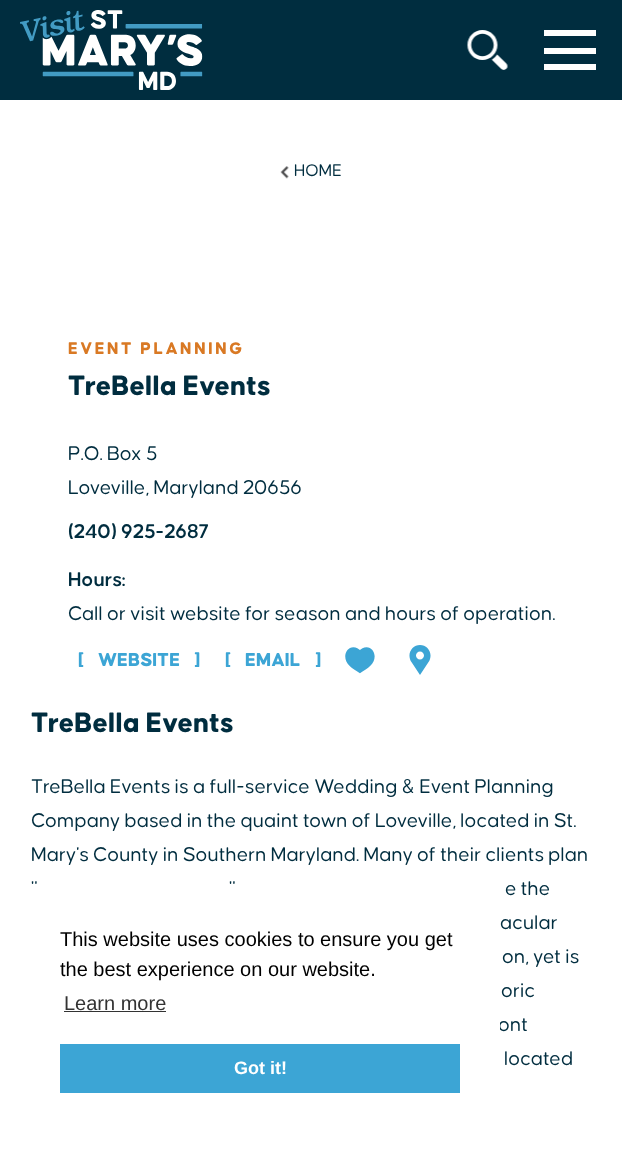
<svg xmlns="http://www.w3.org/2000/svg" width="622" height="1152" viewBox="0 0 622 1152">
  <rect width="100%" height="100%" fill="#fff"/>
  <path d="M0 0h622v100H0z" fill="#002d3f"/>
  <image x="20" y="10" width="183" height="80" href="img/1.png"/>
  <image x="467" y="30" width="41" height="40" href="img/2.png"/>
  <path d="M544 30h52v6H544z" fill="#fff"/>
  <path d="M544 48h52v6H544z" fill="#fff"/>
  <path d="M544 64h52v6H544z" fill="#fff"/>
  <image x="280" y="166" width="9" height="13" href="img/3.png"/>
  <image x="345" y="647" width="30" height="27" href="img/4.png"/>
  <image x="409" y="645" width="22" height="30" href="img/5.png"/>
  <path d="M64 1011h102v1H64z" fill="#333"/>
  <path d="M60 1044h400v49H60z" fill="#3ca5d5"/>
  <text x="294" y="176" font-family="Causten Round" font-size="18" fill="#002d3f">HOME</text>
  <text x="68" y="354" font-family="Causten Round" font-size="18" font-weight="800" letter-spacing="2.5" fill="#d97924">EVENT PLANNING</text>
  <text x="68" y="395" font-family="Causten Round" font-size="30" font-weight="800" fill="#002d3f">TreBella Events</text>
  <g font-family="Causten Round" font-size="21.25" fill="#002d3f">
    <text x="68" y="460">P.O. Box 5</text>
    <text x="68" y="494">Loveville, Maryland 20656</text>
  </g>
  <g font-family="Causten Round" font-size="21.25" font-weight="600" fill="#002d3f">
    <text x="68" y="538">(240) 925-2687</text>
    <text x="68" y="586">Hours:</text>
  </g>
  <text x="68" y="620" font-family="Causten Round" font-size="21.25" fill="#002d3f">Call or visit website for season and hours of operation.</text>
  <g font-family="Causten Round" font-size="20" font-weight="800" fill="#3ca5d5">
    <text x="78" y="666">[</text>
    <text x="98" y="666">WEBSITE</text>
    <text x="194" y="666">]</text>
    <text x="225" y="666">[</text>
    <text x="245" y="666">EMAIL</text>
    <text x="315" y="666">]</text>
  </g>
  <text x="31" y="732" font-family="Causten Round" font-size="30" font-weight="800" fill="#002d3f">TreBella Events</text>
  <g font-family="Causten Round" font-size="21.25" fill="#002d3f">
    <text x="31" y="793">TreBella Events is a full-service Wedding &amp; Event Planning</text>
    <text x="31" y="827">Company based in the quaint town of Loveville, located in St.</text>
    <text x="31" y="861">Mary's County in Southern Maryland. Many of their clients plan</text>
    <text x="31" y="895">"</text>
    <text x="229" y="895">"</text>
    <text x="505" y="895">e the</text>
    <text x="500" y="929">acular</text>
    <text x="502" y="963">on, yet is</text>
    <text x="501" y="997">oric</text>
    <text x="498" y="1031">ont</text>
    <text x="504" y="1065">located</text>
  </g>
  <path d="M498 1022h2v8H498z" fill="#fff"/>
  <g font-family="Liberation Sans" font-size="20" fill="#000">
    <text x="60" y="946">This website uses cookies to ensure you get</text>
    <text x="60" y="976">the best experience on our website.</text>
  </g>
  <text x="64" y="1010" font-family="Liberation Sans" font-size="20" fill="#333">Learn more</text>
  <text x="234" y="1074" font-family="Liberation Sans" font-size="18" font-weight="bold" fill="#fff">Got it!</text>
</svg>
